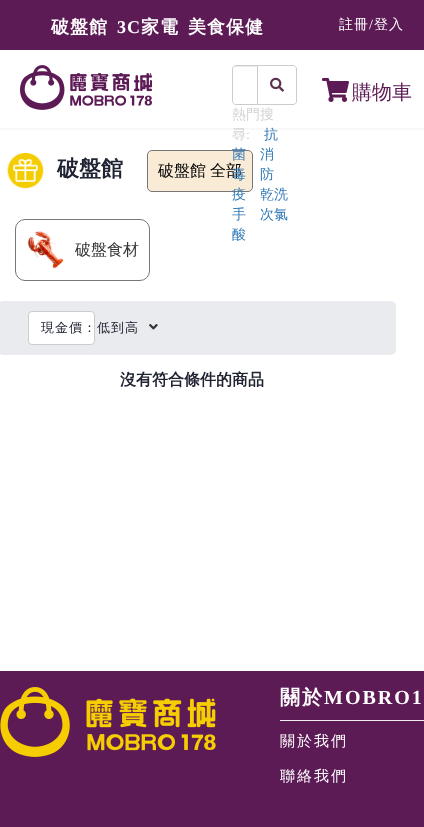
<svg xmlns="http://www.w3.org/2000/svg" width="424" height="827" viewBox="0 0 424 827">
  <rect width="100%" height="100%" fill="#fff"/>
  <path d="M0 0h424v50H0z" fill="#5d1b56"/>
  <image x="7" y="153" width="37" height="36" href="img/1.png"/>
  <rect x="147.5" y="150.5" width="105" height="41" rx="4.5" fill="#faebd7" stroke="#777"/>
  <rect x="15.5" y="219.5" width="134" height="61" rx="9.5" fill="none" stroke="#777"/>
  <image x="27" y="231" width="37" height="38" href="img/2.png"/>
  <rect x="-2" y="301" width="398" height="54" rx="5" fill="#e9ebee"/>
  <rect x="28.5" y="311.5" width="66" height="33" rx="3.5" fill="#fff" stroke="#ccc"/>
  <image x="149" y="324" width="9" height="6" href="img/3.png"/>
  <path d="M0 128h424v2H0z" fill="#f8f8f8"/>
  <image x="20" y="65" width="132" height="45" href="img/4.png"/>
  <image x="322" y="78" width="27" height="24" href="img/5.png"/>
  <path d="M236 67H257V66H243C238.5 66 233 64 233 70C233 68 234 67 236 67Z" fill="#ececec"/>
  <path d="M236 65.5H257.5V104.5H236C234 104.5 232.5 103 232.5 101V69C232.5 67 234 65.5 236 65.5Z" fill="none" stroke="#ccc"/>
  <path d="M257.5 65.5H293C295 65.5 296.5 67 296.5 69V101C296.5 103 295 104.5 293 104.5H257.5Z" fill="#fff" stroke="#ccc"/>
  <image x="270" y="77" width="14" height="15" href="img/6.png"/>
  <path d="M0 671h424v156H0z" fill="#5d1b56"/>
  <image x="0" y="687" width="216" height="70" href="img/7.png"/>
  <path d="M280 720h144v1H280z" fill="#eee"/>
  <text x="51" y="33" font-family="WenQuanYi Zen Hei" font-size="18" font-weight="bold" letter-spacing="1" fill="#fefefe">破盤館</text>
  <text x="117" y="33" font-family="Liberation Serif" font-size="18" font-weight="bold" letter-spacing="1" fill="#fefefe">3C</text>
  <g font-family="WenQuanYi Zen Hei" font-size="18" font-weight="bold" letter-spacing="1" fill="#fefefe">
    <text x="141" y="33">家電</text>
    <text x="188" y="33">美食保健</text>
  </g>
  <text x="339" y="29" font-family="WenQuanYi Zen Hei" font-size="14" font-weight="500" letter-spacing="1" fill="#fefefe">註冊</text>
  <text x="369" y="29" font-family="Liberation Serif" font-size="14" letter-spacing="1" fill="#fefefe">/</text>
  <text x="374" y="29" font-family="WenQuanYi Zen Hei" font-size="14" font-weight="500" letter-spacing="1" fill="#fefefe">登入</text>
  <text x="57" y="176" font-family="WenQuanYi Zen Hei" font-size="22" font-weight="bold" fill="#202432">破盤館</text>
  <g font-family="WenQuanYi Zen Hei" font-size="16" font-weight="500" fill="#000">
    <text x="158" y="176">破盤館</text>
    <text x="210" y="176">全部</text>
  </g>
  <text x="75" y="255" font-family="WenQuanYi Zen Hei" font-size="16" font-weight="500" fill="#333">破盤食材</text>
  <text x="41" y="332" font-family="WenQuanYi Zen Hei" font-size="13" font-weight="500" letter-spacing="1" fill="#202432">現金價：低到高</text>
  <text x="120" y="385" font-family="WenQuanYi Zen Hei" font-size="16" font-weight="bold" fill="#202432">沒有符合條件的商品</text>
  <text x="352" y="99" font-family="WenQuanYi Zen Hei" font-size="20" font-weight="500" fill="#5d1b56">購物車</text>
  <g font-family="WenQuanYi Zen Hei" font-size="14" font-weight="500" fill="#d3d3d3">
    <text x="232" y="119">熱門搜</text>
    <text x="232" y="139">尋</text>
  </g>
  <text x="246" y="139" font-family="Liberation Serif" font-size="14" fill="#d3d3d3">:</text>
  <g font-family="WenQuanYi Zen Hei" font-size="14" font-weight="500" fill="#337ab7">
    <text x="264" y="139">抗</text>
    <text x="232" y="159">菌</text>
    <text x="260" y="159">消</text>
    <text x="232" y="179">毒</text>
    <text x="260" y="179">防</text>
    <text x="232" y="199">疫</text>
    <text x="260" y="199">乾洗</text>
    <text x="232" y="219">手</text>
    <text x="260" y="219">次氯</text>
    <text x="232" y="239">酸</text>
  </g>
  <text x="280" y="704" font-family="WenQuanYi Zen Hei" font-size="20" font-weight="bold" letter-spacing="2" fill="#fefefe">關於</text>
  <text x="324" y="704" font-family="Liberation Serif" font-size="20" font-weight="bold" letter-spacing="2" fill="#fefefe">MOBRO1</text>
  <g font-family="WenQuanYi Zen Hei" font-size="15" font-weight="500" letter-spacing="2" fill="#fefefe">
    <text x="280" y="746">關於我們</text>
    <text x="280" y="781">聯絡我們</text>
  </g>
</svg>
